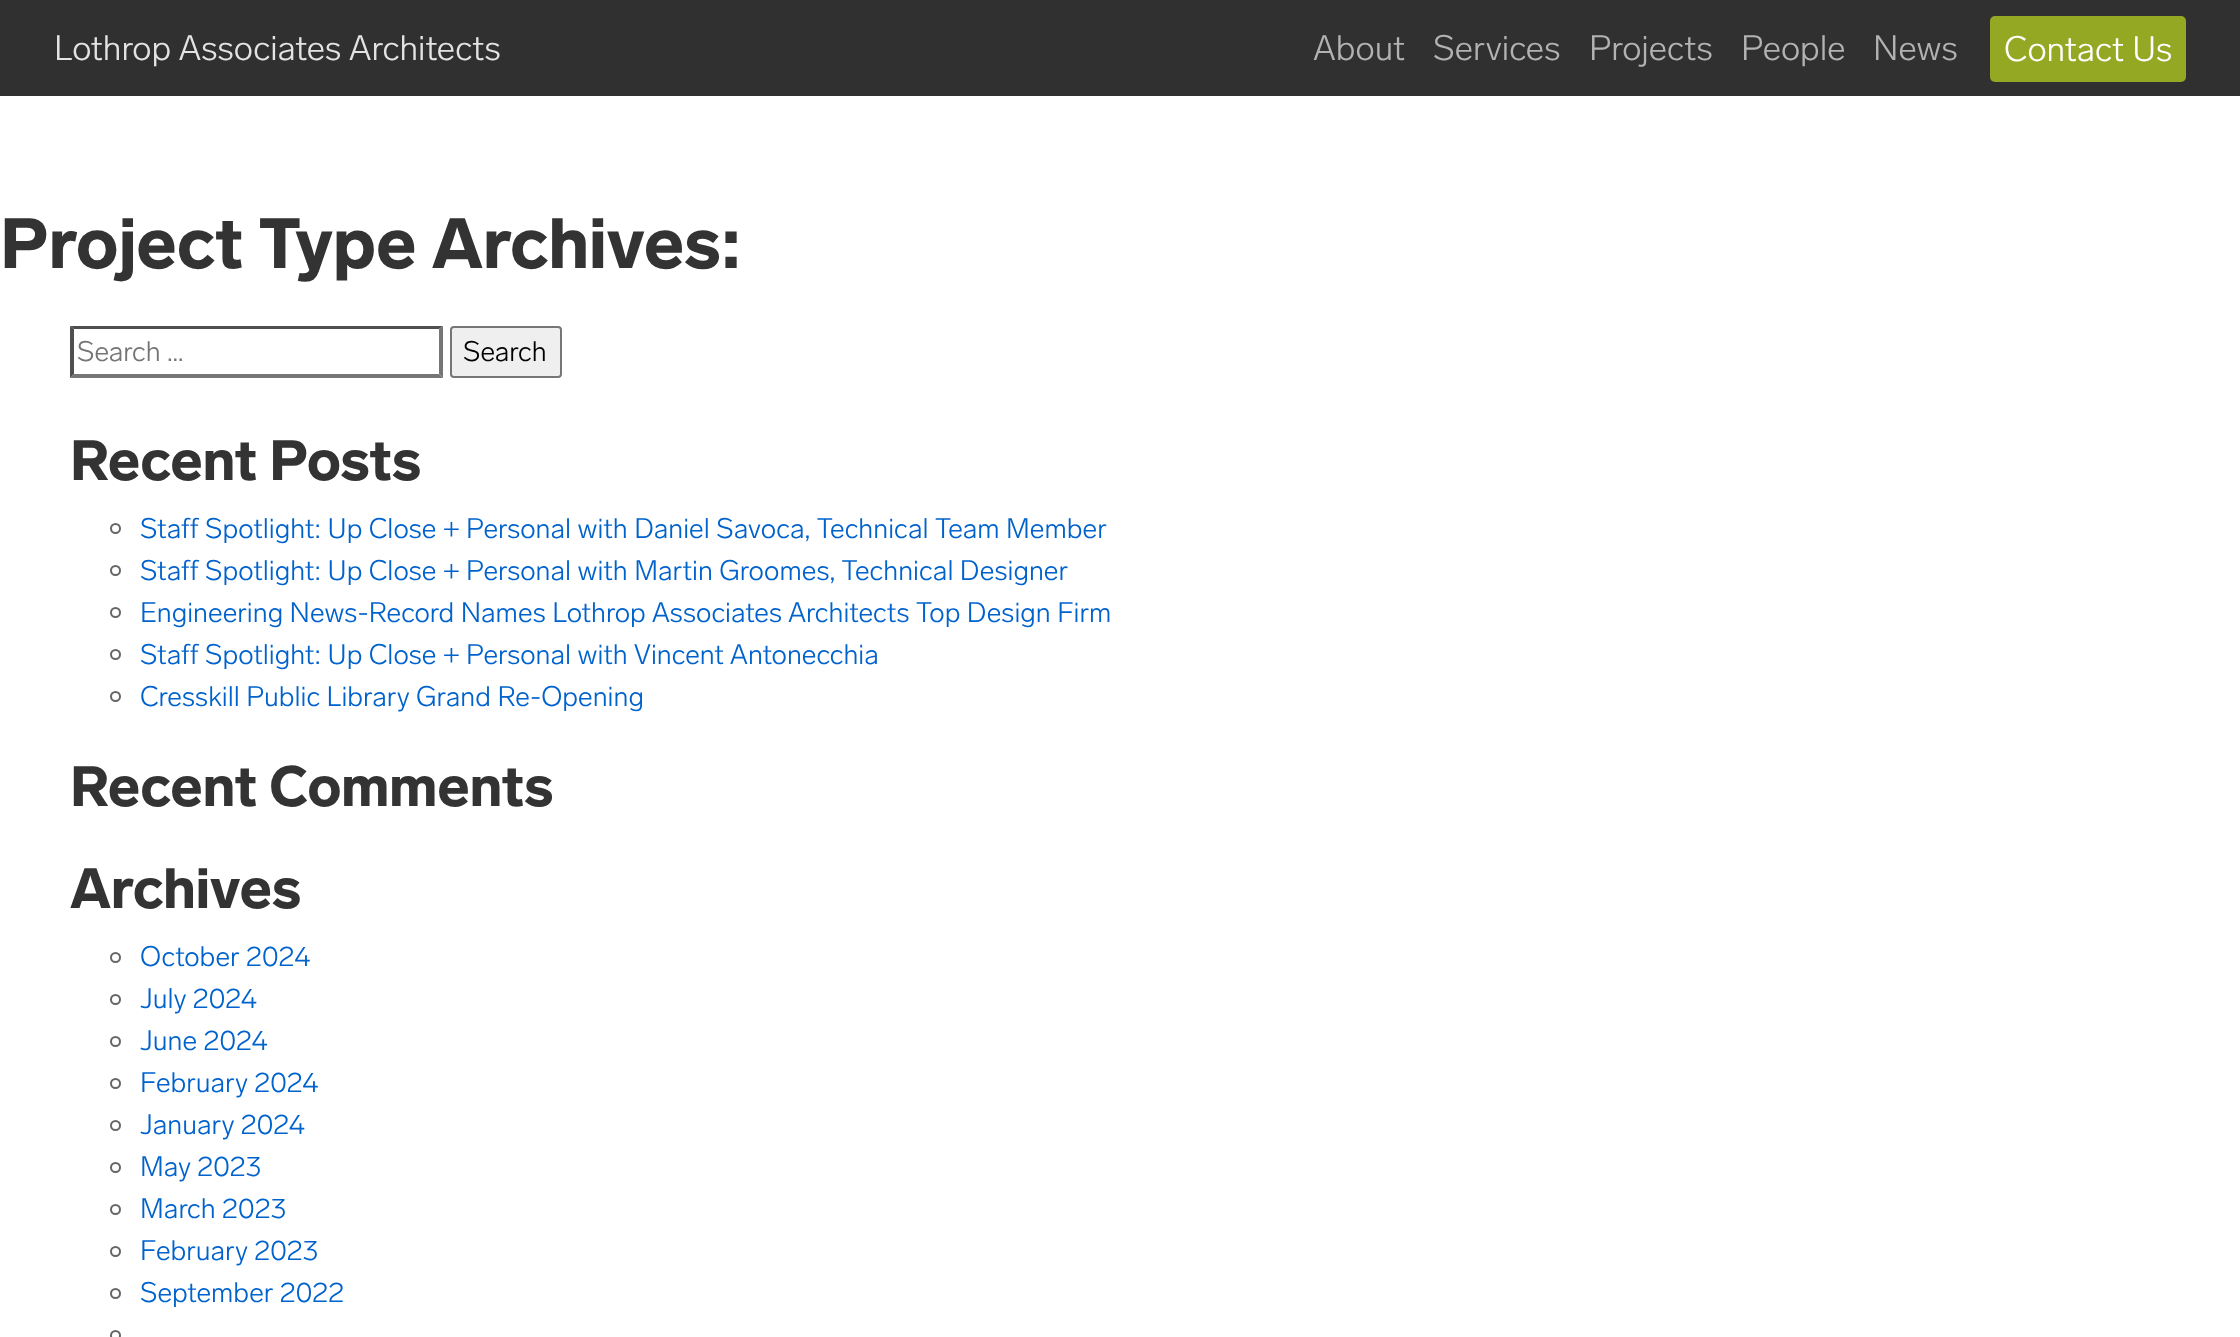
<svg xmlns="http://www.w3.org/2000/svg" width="2240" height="1337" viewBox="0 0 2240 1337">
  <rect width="100%" height="100%" fill="#fff"/>
  <path d="M0 0h2240v96H0z" fill="#303030"/>
  <rect x="1990" y="16" width="196" height="66" rx="5" fill="#95a823"/>
  <path d="M70 326H443L439 329H74Z" fill="#4f4f4f"/>
  <path d="M443 326V378L439 374V329Z" fill="#767676"/>
  <path d="M443 378H70L74 374H439Z" fill="#767676"/>
  <path d="M70 378V326L74 329V374Z" fill="#4f4f4f"/>
  <rect x="451" y="327" width="110" height="50" rx="3" fill="#efefef" stroke="#767676" stroke-width="2"/>
  <circle cx="115.5" cy="528.5" r="4.5" fill="none" stroke="#666" stroke-width="2"/>
  <circle cx="115.5" cy="570.5" r="4.5" fill="none" stroke="#666" stroke-width="2"/>
  <circle cx="115.5" cy="612.5" r="4.5" fill="none" stroke="#666" stroke-width="2"/>
  <circle cx="115.5" cy="654.5" r="4.5" fill="none" stroke="#666" stroke-width="2"/>
  <circle cx="115.5" cy="696.5" r="4.5" fill="none" stroke="#666" stroke-width="2"/>
  <circle cx="115.5" cy="957.5" r="4.5" fill="none" stroke="#666" stroke-width="2"/>
  <circle cx="115.5" cy="999.5" r="4.5" fill="none" stroke="#666" stroke-width="2"/>
  <circle cx="115.5" cy="1041.5" r="4.5" fill="none" stroke="#666" stroke-width="2"/>
  <circle cx="115.5" cy="1083.5" r="4.5" fill="none" stroke="#666" stroke-width="2"/>
  <circle cx="115.5" cy="1125.5" r="4.5" fill="none" stroke="#666" stroke-width="2"/>
  <circle cx="115.5" cy="1167.5" r="4.5" fill="none" stroke="#666" stroke-width="2"/>
  <circle cx="115.5" cy="1209.5" r="4.5" fill="none" stroke="#666" stroke-width="2"/>
  <circle cx="115.5" cy="1251.5" r="4.5" fill="none" stroke="#666" stroke-width="2"/>
  <circle cx="115.5" cy="1293.5" r="4.5" fill="none" stroke="#666" stroke-width="2"/>
  <circle cx="115.5" cy="1335.5" r="4.5" fill="none" stroke="#666" stroke-width="2"/>
  <text x="54" y="60" font-family="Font" font-size="35" font-weight="300" fill="#e3e3e3">Lothrop Associates Architects</text>
  <g font-family="Font" font-size="35" font-weight="300" fill="#b2b2b2">
    <text x="1313" y="60">About</text>
    <text x="1433" y="60">Services</text>
    <text x="1589" y="60">Projects</text>
    <text x="1741" y="60">People</text>
    <text x="1873" y="60">News</text>
  </g>
  <text x="2004" y="61" font-family="Font" font-size="35" font-weight="300" fill="#fff">Contact Us</text>
  <text x="0" y="268" font-family="Font" font-size="70" font-weight="900" fill="#333">Project Type Archives:</text>
  <text x="77" y="361" font-family="Font" font-size="28" font-weight="300" fill="#757575">Search …</text>
  <text x="463" y="361" font-family="Font" font-size="28" font-weight="300" fill="#000">Search</text>
  <text x="70" y="480" font-family="Font" font-size="56" font-weight="900" fill="#333">Recent Posts</text>
  <g font-family="Font" font-size="28" font-weight="300" fill="#0062cc">
    <text x="140" y="538">Staff Spotlight: Up Close + Personal with Daniel Savoca, Technical Team Member</text>
    <text x="140" y="580">Staff Spotlight: Up Close + Personal with Martin Groomes, Technical Designer</text>
    <text x="140" y="622">Engineering News-Record Names Lothrop Associates Architects Top Design Firm</text>
    <text x="140" y="664">Staff Spotlight: Up Close + Personal with Vincent Antonecchia</text>
    <text x="140" y="706">Cresskill Public Library Grand Re-Opening</text>
  </g>
  <g font-family="Font" font-size="56" font-weight="900" fill="#333">
    <text x="70" y="806">Recent Comments</text>
    <text x="70" y="908">Archives</text>
  </g>
  <g font-family="Font" font-size="28" font-weight="300" fill="#0062cc">
    <text x="140" y="966">October 2024</text>
    <text x="140" y="1008">July 2024</text>
    <text x="140" y="1050">June 2024</text>
    <text x="140" y="1092">February 2024</text>
    <text x="140" y="1134">January 2024</text>
    <text x="140" y="1176">May 2023</text>
    <text x="140" y="1218">March 2023</text>
    <text x="140" y="1260">February 2023</text>
    <text x="140" y="1302">September 2022</text>
  </g>
</svg>
